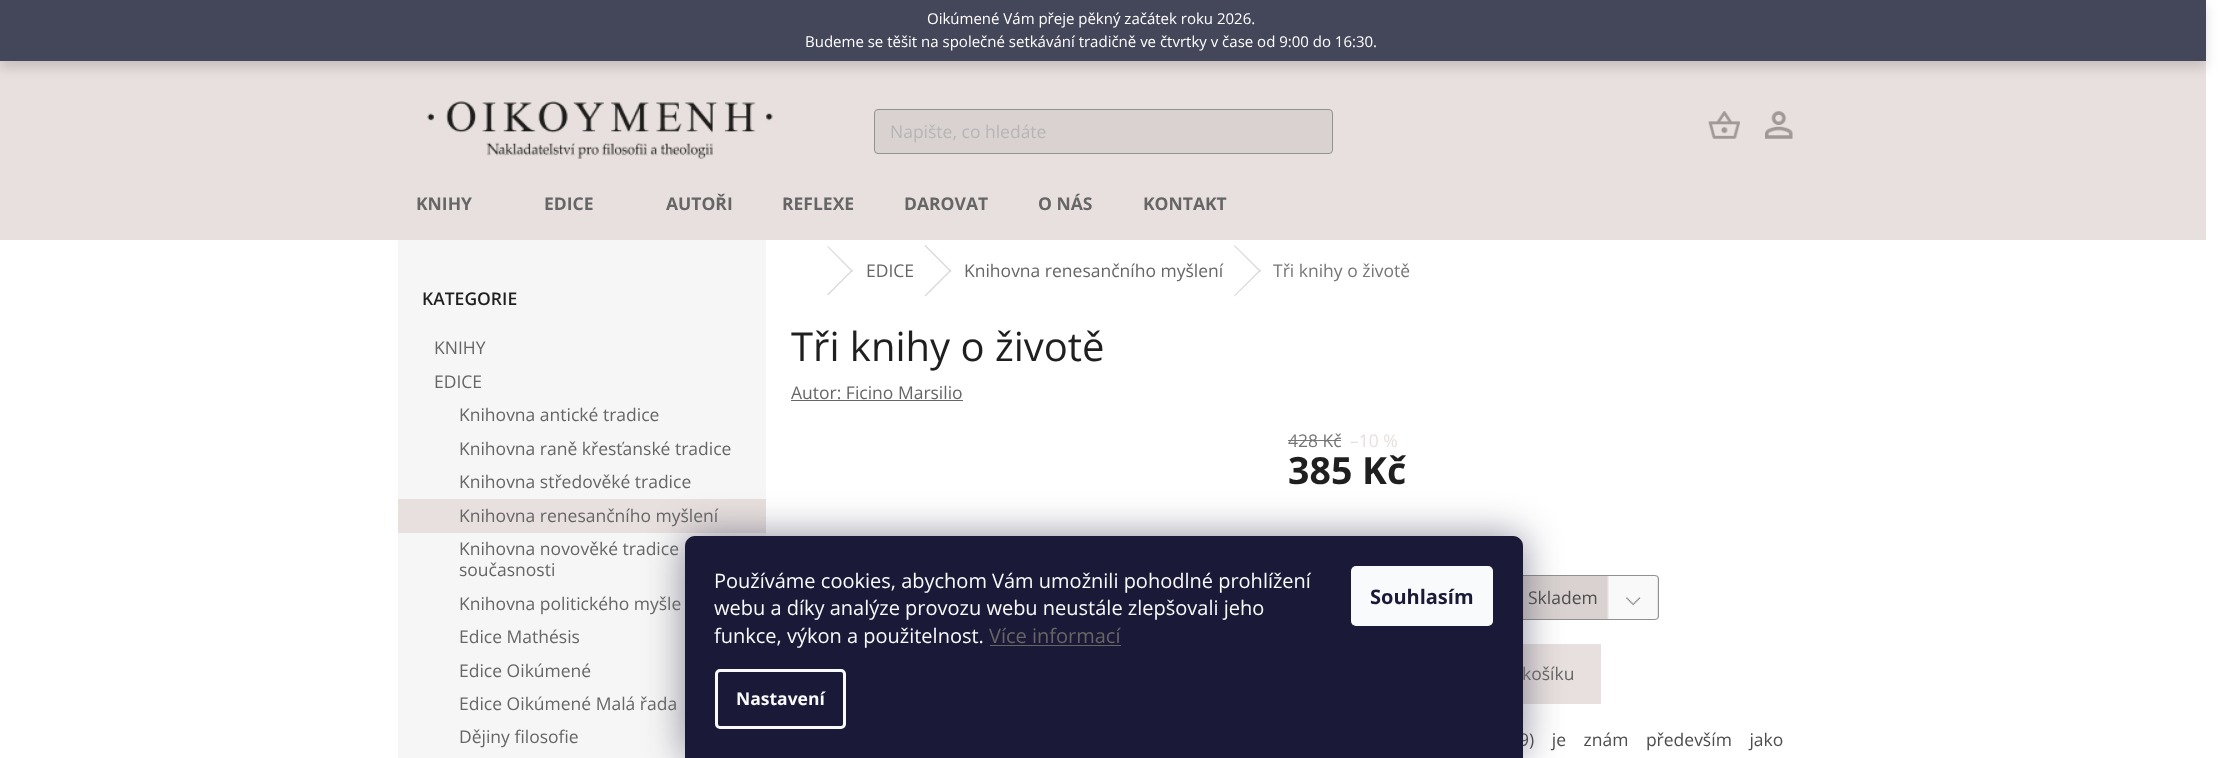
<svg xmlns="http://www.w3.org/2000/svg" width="2224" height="758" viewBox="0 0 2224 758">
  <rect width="100%" height="100%" fill="#fff"/>
  <path d="M0 61h2206v179H0z" fill="#e8e0de"/>
  <path d="M0 6h2206v62H0z" fill="#00000024" filter="blur(6px)"/>
  <path d="M0 0h2206v61H0z" fill="#44465a"/>
  <image x="427" y="101" width="346" height="58" href="img/1.png"/>
  <rect x="874.5" y="109.5" width="458" height="44" rx="3.5" fill="#d9d2d0" stroke="#919191"/>
  <image x="1708" y="111" width="32" height="28" href="img/2.png"/>
  <image x="1765" y="111" width="28" height="28" href="img/3.png"/>
  <path d="M398 240h368v518H398z" fill="#f6f6f6"/>
  <path d="M398 499h368v34H398z" fill="#e8e0de"/>
  <path d="M827 246.5L828 246L853 271L852 272Z" fill="#dadada"/>
  <path d="M852 269.5L853 270.5L828 295.5L827 294.5Z" fill="#dadada"/>
  <path d="M924.5 246L925.5 245L951.5 271L950.5 272Z" fill="#dadada"/>
  <path d="M950.5 269.5L951.5 270.5L925.5 296.5L924.5 295.5Z" fill="#dadada"/>
  <path d="M1234 246L1234.5 245L1261 271L1260 272Z" fill="#dadada"/>
  <path d="M1260 269.5L1261 270.5L1234.5 296.5L1234 295.5Z" fill="#dadada"/>
  <path d="M791 400h172v1H791z" fill="#666"/>
  <path d="M1288 440h53v1H1288z" fill="#767676"/>
  <rect x="1384" y="575" width="275" height="45" rx="4" fill="#d9d2d0"/>
  <image x="1607" y="575" width="51" height="45" href="img/4.png"/>
  <rect x="1384.5" y="575.5" width="274" height="44" rx="3.5" fill="none" stroke="#919191"/>
  <path d="M1523 644h78v60H1523z" fill="#e8e0de"/>
  <rect x="685" y="536" width="838" height="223" rx="10" fill="#1b193980" filter="blur(19px)"/>
  <g font-family="Open Sans" font-size="15" fill="#fff">
    <text x="927" y="24">Oikúmené Vám přeje pěkný začátek roku 2026.</text>
    <text x="805" y="47">Budeme se těšit na společné setkávání tradičně ve čtvrtky v čase od 9:00 do 16:30.</text>
  </g>
  <text x="890" y="138" font-family="Open Sans" font-size="17.5" fill="#b6b6b6">Napište, co hledáte</text>
  <g font-family="Open Sans" font-size="17.5" font-weight="bold" fill="#666">
    <text x="416" y="210">KNIHY</text>
    <text x="544" y="210">EDICE</text>
    <text x="666" y="210">AUTOŘI</text>
    <text x="782" y="210">REFLEXE</text>
    <text x="904" y="210">DAROVAT</text>
    <text x="1038" y="210">O NÁS</text>
    <text x="1143" y="210">KONTAKT</text>
  </g>
  <text x="422" y="305" font-family="Open Sans" font-size="17.5" font-weight="600" fill="#1f1f1f">KATEGORIE</text>
  <g font-family="Open Sans" font-size="17.5" fill="#666">
    <text x="434" y="354">KNIHY</text>
    <text x="434" y="388">EDICE</text>
    <text x="459" y="421">Knihovna antické tradice</text>
    <text x="459" y="455">Knihovna raně křesťanské tradice</text>
    <text x="459" y="488">Knihovna středověké tradice</text>
    <text x="459" y="522">Knihovna renesančního myšlení</text>
    <text x="459" y="555">Knihovna novověké tradice</text>
    <text x="459" y="576">současnosti</text>
    <text x="459" y="610">Knihovna politického myšle</text>
    <text x="459" y="643">Edice Mathésis</text>
    <text x="459" y="677">Edice Oikúmené</text>
    <text x="459" y="710">Edice Oikúmené Malá řada</text>
    <text x="459" y="743">Dějiny filosofie</text>
    <text x="866" y="277">EDICE</text>
    <text x="964" y="277">Knihovna renesančního myšlení</text>
  </g>
  <text x="1273" y="277" font-family="Open Sans" font-size="17.5" fill="#767676">Tři knihy o životě</text>
  <text x="791" y="361" font-family="Open Sans" font-size="40" fill="#1f1f1f">Tři knihy o životě</text>
  <text x="791" y="399" font-family="Open Sans" font-size="17.5" fill="#666">Autor: Ficino Marsilio</text>
  <text x="1288" y="447" font-family="Open Sans" font-size="17.5" fill="#767676">428 Kč</text>
  <text x="1350" y="447" font-family="Open Sans" font-size="17.5" fill="#e8e0de">–10 %</text>
  <text x="1288" y="484" font-family="Open Sans" font-size="37.5" font-weight="bold" fill="#1f1f1f">385 Kč</text>
  <text x="1528" y="604" font-family="Open Sans" font-size="17.5" fill="#4d4d4d">Skladem</text>
  <text x="1522" y="680" font-family="Open Sans" font-size="17.5" fill="#666">košíku</text>
  <text x="1519" y="746" word-spacing="13" font-family="Open Sans" font-size="17.5" fill="#4d4d4d">9) je znám především jako</text>
  <path d="M695 536H1513C1518.5 536 1523 540.5 1523 546V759H685V546C685 540.5 689.5 536 695 536Z" fill="#1a1937"/>
  <g font-family="Open Sans" font-size="20" fill="#f8fafb">
    <text x="714" y="588">Používáme cookies, abychom Vám umožnili pohodlné prohlížení</text>
    <text x="714" y="615">webu a díky analýze provozu webu neustále zlepšovali jeho</text>
    <text x="714" y="643">funkce, výkon a použitelnost.</text>
  </g>
  <text x="989" y="643" font-family="Open Sans" font-size="20" fill="#666">Více informací</text>
  <path d="M990 645h131v1H990z" fill="#666"/>
  <rect x="716.5" y="670.5" width="128" height="57" rx="3.5" fill="none" stroke="#f8fafb" stroke-width="3"/>
  <text x="736" y="705" font-family="Open Sans" font-size="17.5" font-weight="bold" fill="#f8fafb">Nastavení</text>
  <rect x="1351" y="566" width="142" height="60" rx="5" fill="#f8fafb"/>
  <text x="1370" y="604" font-family="Open Sans" font-size="20" font-weight="bold" fill="#1a1937">Souhlasím</text>
</svg>
